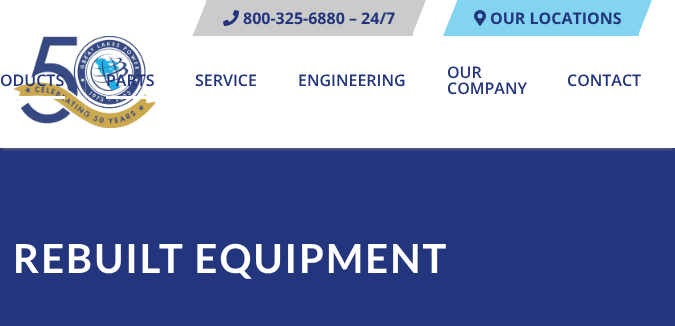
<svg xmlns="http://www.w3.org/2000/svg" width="675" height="326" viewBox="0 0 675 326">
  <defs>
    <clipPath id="clip1"><path d="M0 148h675v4H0z"/></clipPath>
  </defs>
  <rect width="100%" height="100%" fill="#fff"/>
  <path d="M206 0h207v36H206z" fill="#cbcbcb"/>
  <path d="M192.5 36H207V0Z" fill="#cbcbcb"/>
  <image x="223" y="10" width="16" height="16" href="img/1.png"/>
  <path d="M412 0V35.5L426 0Z" fill="#cbcbcb"/>
  <path d="M457 0h182v36H457z" fill="#83d4f1"/>
  <path d="M443 36H457V1Z" fill="#83d4f1"/>
  <image x="474" y="10" width="12" height="16" href="img/2.png"/>
  <path d="M638 0V35.5L652 0Z" fill="#83d4f1"/>
  <path d="M0 148h675v178H0z" fill="#23357d"/>
  <g clip-path="url(#clip1)">
    <path d="M2 42h671v108H2z" fill="#80808080" filter="blur(1px)"/>
  </g>
  <image x="13" y="36" width="143" height="92" href="img/3.png"/>
  <path d="M85 50h1v67H85z" fill="#ffffff40"/>
  <path d="M17 96h48v3H17z" fill="#fefefe"/>
  <path d="M106 96h48v3H106z" fill="#fefefe"/>
  <g font-family="Open Sans" font-size="16" font-weight="bold" fill="#23357d">
    <text x="243" y="24">800-325-6880 – 24/7</text>
    <text x="490" y="24">OUR LOCATIONS</text>
  </g>
  <g font-family="Open Sans" font-size="16" font-weight="600" fill="#23357d">
    <text x="0" y="86">ODUCTS</text>
    <text x="106" y="86">PARTS</text>
    <text x="195" y="86">SERVICE</text>
    <text x="298" y="86">ENGINEERING</text>
    <text x="447" y="78">OUR</text>
    <text x="447" y="94">COMPANY</text>
    <text x="567" y="86">CONTACT</text>
  </g>
  <text x="13" y="273" font-family="Lato" font-size="40" font-weight="bold" letter-spacing="2" fill="#fff">REBUILT EQUIPMENT</text>
</svg>
